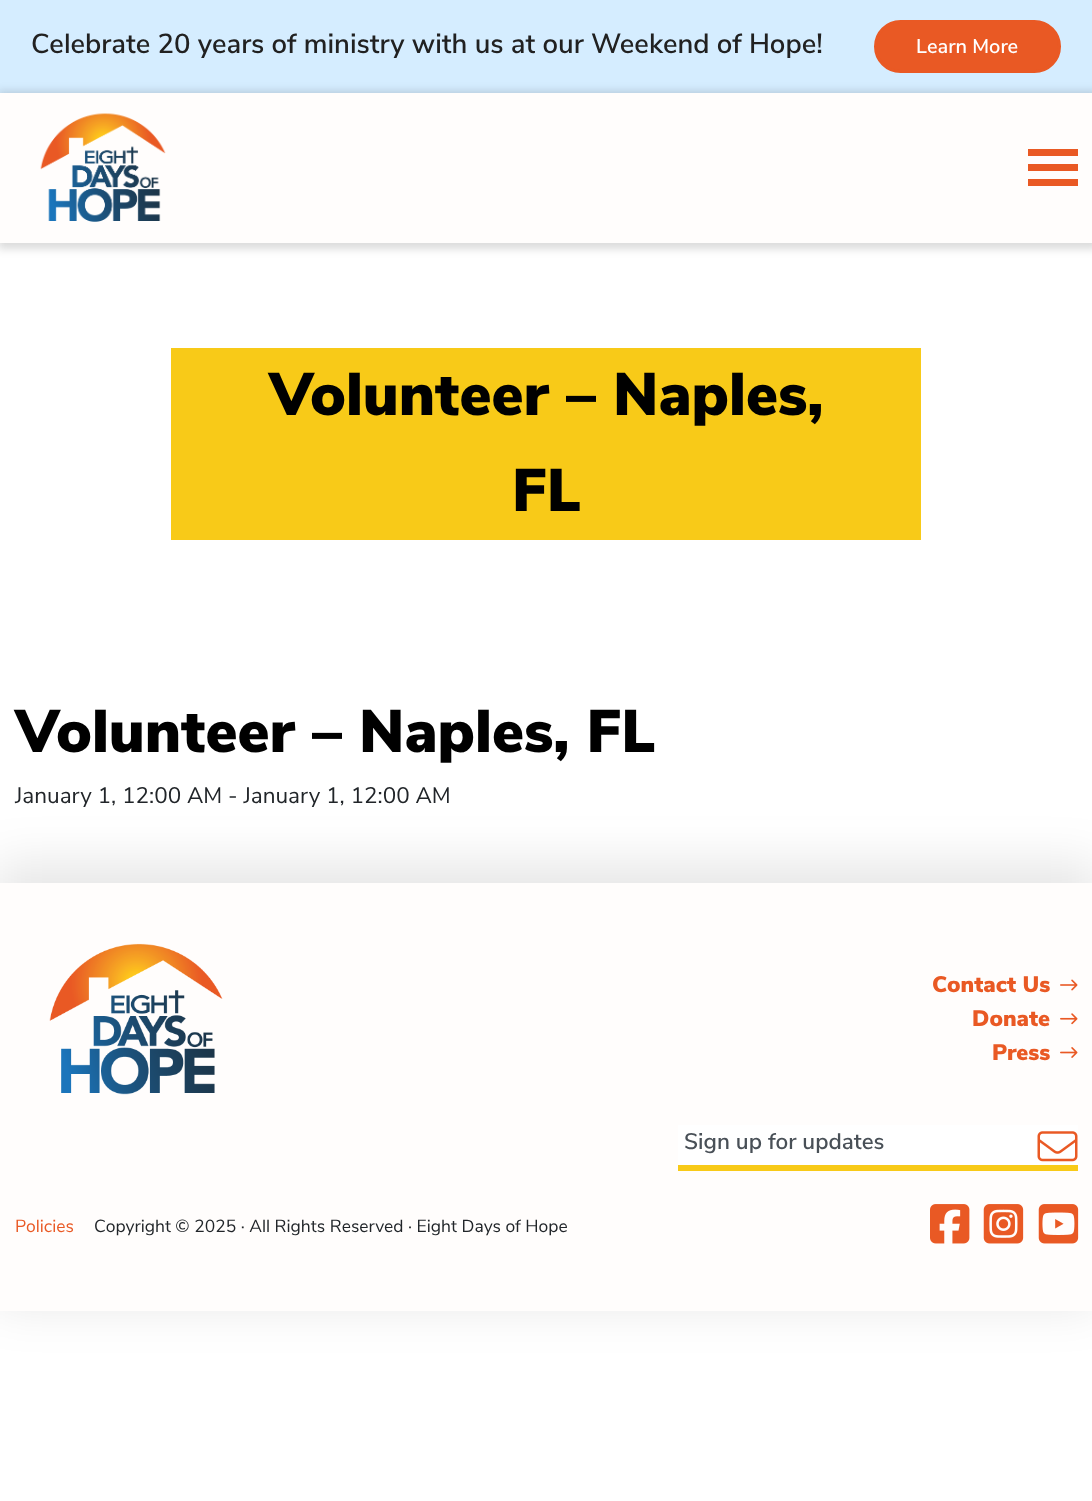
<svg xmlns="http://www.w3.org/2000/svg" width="1092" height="1501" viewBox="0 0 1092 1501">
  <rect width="100%" height="100%" fill="#fff"/>
  <path d="M0 0h1092v93H0z" fill="#d5edff"/>
  <rect x="875.5" y="21.5" width="184" height="50" rx="25" fill="#e95924" stroke="#e95924" stroke-width="3"/>
  <path d="M-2 91h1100v158H-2z" fill="#00000024" filter="blur(4px)"/>
  <path d="M0 93h1092v150H0z" fill="#fffdfc"/>
  <image x="40" y="113" width="126" height="109" href="img/1.png"/>
  <path d="M1028 149h50v7H1028z" fill="#e95924"/>
  <path d="M1028 164h50v7H1028z" fill="#e95924"/>
  <path d="M1028 179h50v7H1028z" fill="#e95924"/>
  <path d="M171 348h750v192H171z" fill="#f8ca18"/>
  <path d="M-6 864h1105v441H-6z" fill="#0000001a" filter="blur(25px)"/>
  <path d="M0 883h1092v428H0z" fill="#fffdfc"/>
  <image x="49" y="943" width="174" height="152" href="img/2.png"/>
  <image x="1060" y="979" width="18" height="12" href="img/3.png"/>
  <image x="1060" y="1013" width="18" height="12" href="img/4.png"/>
  <image x="1060" y="1047" width="18" height="11" href="img/5.png"/>
  <path d="M678 1125h400v40H678z" fill="#fff"/>
  <path d="M678 1165h400v6H678z" fill="#f8ca18"/>
  <image x="1037" y="1131" width="41" height="31" href="img/6.png"/>
  <image x="930" y="1204" width="40" height="40" href="img/7.png"/>
  <image x="983" y="1204" width="41" height="40" href="img/8.png"/>
  <image x="1038" y="1204" width="41" height="40" href="img/9.png"/>
  <text x="31" y="53" font-family="Nunito Sans" font-size="27.5" font-weight="600" fill="#212121">Celebrate 20 years of ministry with us at our Weekend of Hope!</text>
  <text x="916" y="53" font-family="Nunito Sans" font-size="20" font-weight="600" fill="#fff">Learn More</text>
  <g font-family="Nunito Sans" font-size="60" font-weight="900" fill="#000">
    <text x="269" y="415">Volunteer – Naples,</text>
    <text x="512" y="511">FL</text>
    <text x="15" y="752">Volunteer – Naples, FL</text>
  </g>
  <text x="15" y="803" font-family="Nunito Sans" font-size="22.5" fill="#212529">January 1, 12:00 AM - January 1, 12:00 AM</text>
  <g font-family="Nunito Sans" font-size="22.5" font-weight="900" fill="#e95924">
    <text x="932" y="992">Contact Us</text>
    <text x="972" y="1026">Donate</text>
    <text x="992" y="1060">Press</text>
  </g>
  <text x="684" y="1149" font-family="Nunito Sans" font-size="22.5" font-weight="600" fill="#495057">Sign up for updates</text>
  <text x="15" y="1232" font-family="Nunito Sans" font-size="17.5" fill="#e95924">Policies</text>
  <text x="94" y="1232" font-family="Nunito Sans" font-size="17.5" fill="#212529">Copyright © 2025 · All Rights Reserved · Eight Days of Hope</text>
</svg>
